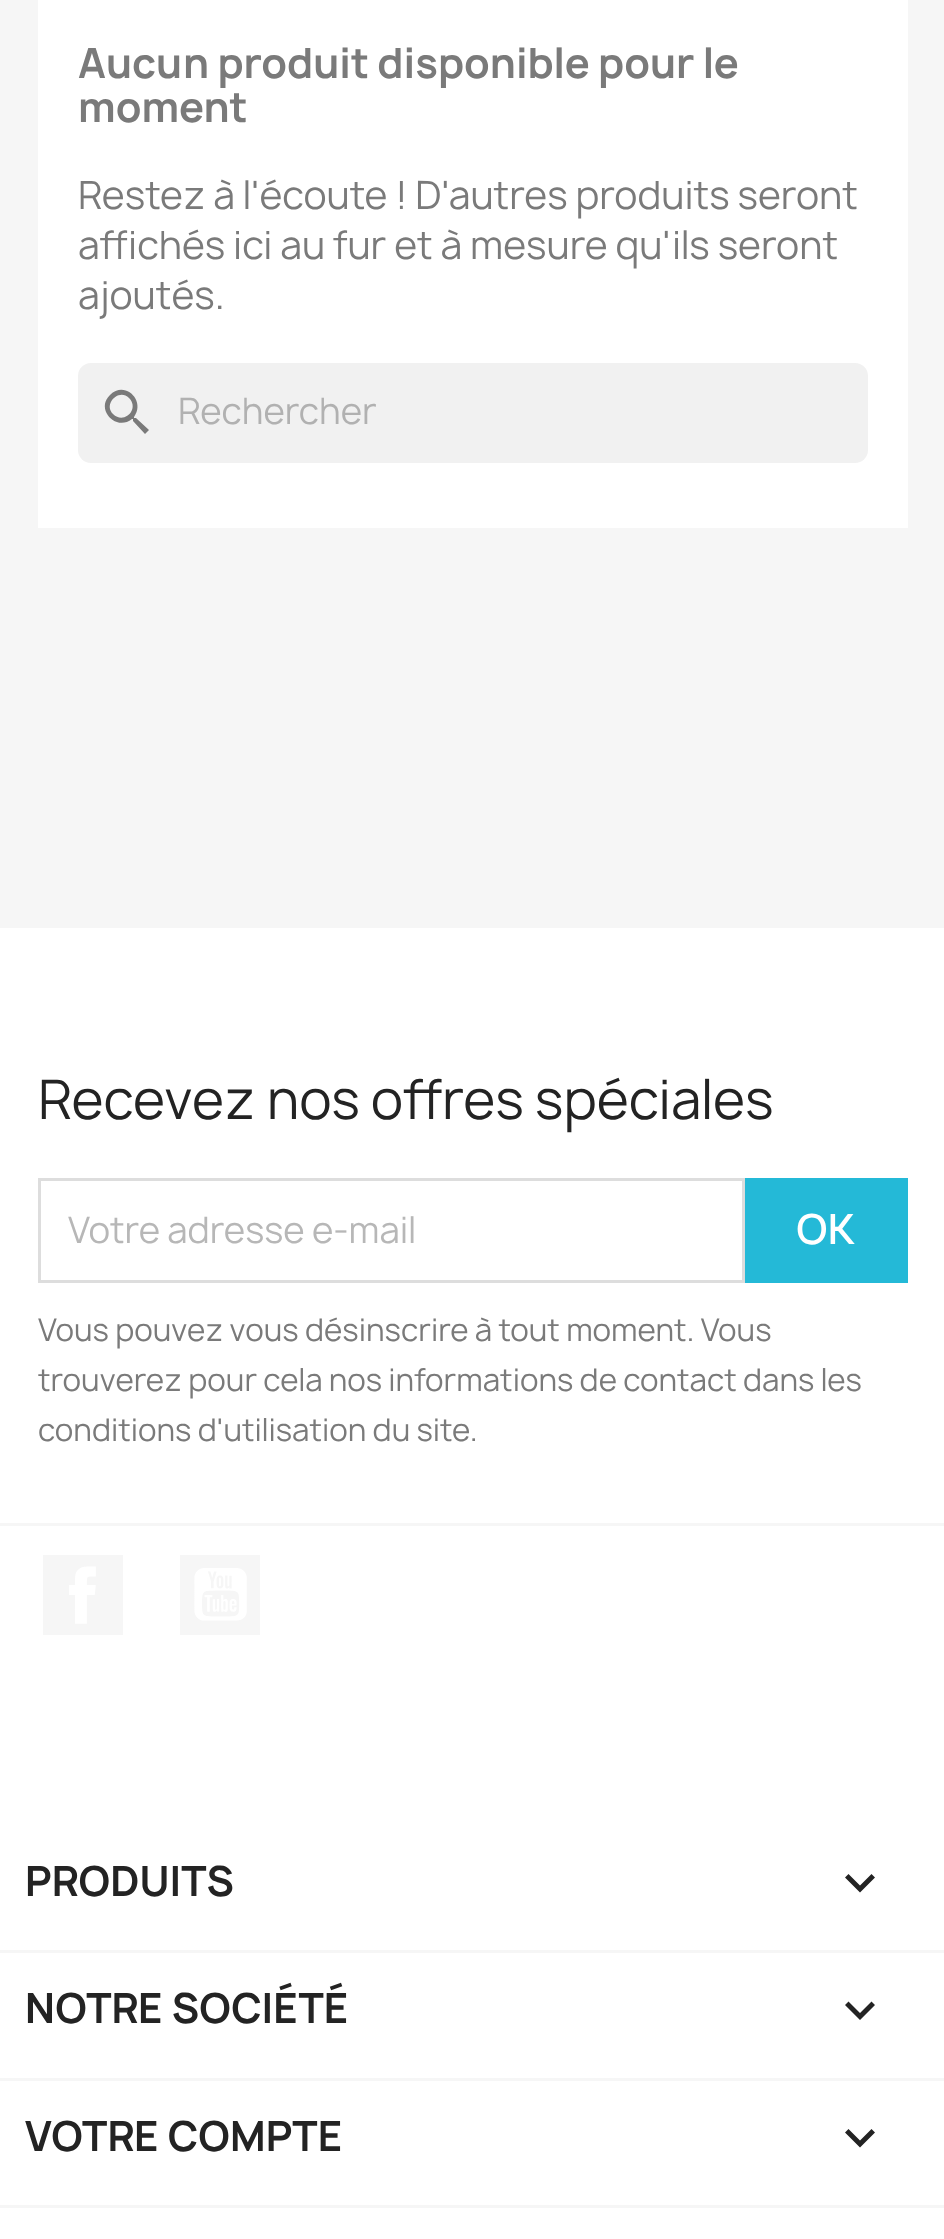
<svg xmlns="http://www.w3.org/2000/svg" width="944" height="2239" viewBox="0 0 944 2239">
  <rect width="100%" height="100%" fill="#fff"/>
  <path d="M0 0h944v928H0z" fill="#f6f6f6"/>
  <path d="M38 0h870v528H38z" fill="#fff"/>
  <rect x="78" y="363" width="790" height="100" rx="13" fill="#f1f1f1"/>
  <path d="M113 414C124 425 140 409 129 398C119 388 103 404 113 414ZM136 418L149 430L145 434L133 421V419H132C116 432 95 409 110 395C125 380 146 401 134 417V418Z" fill="#7a7a7a"/>
  <path d="M0 1523h944v3H0z" fill="#f6f6f6"/>
  <path d="M39.5 1179.5h704v102H39.5z" fill="none" stroke="#ddd" stroke-width="3"/>
  <path d="M745 1178h163v105H745z" fill="#24b9d7"/>
  <path d="M43 1555h80v80H43z" fill="#f6f6f6"/>
  <image x="69" y="1566" width="27" height="58" href="img/1.png"/>
  <path d="M180 1555h80v80H180z" fill="#f6f6f6"/>
  <image x="194" y="1568" width="53" height="53" href="img/2.png"/>
  <path d="M0 1950h944v3H0z" fill="#f6f6f6"/>
  <path d="M848.5 1874L860 1885.5L871.5 1874L875 1877.5L860 1892.5L845 1877.5Z" fill="#232323"/>
  <path d="M0 2078h944v3H0z" fill="#f6f6f6"/>
  <path d="M848.5 2001.5L860 2013L871.5 2001.5L875 2005L860 2020L845 2005Z" fill="#232323"/>
  <path d="M0 2205h944v3H0z" fill="#f6f6f6"/>
  <path d="M848.5 2129L860 2140.5L871.5 2129L875 2132.5L860 2147.5L845 2132.5Z" fill="#232323"/>
  <g font-family="Manrope" font-size="40" font-weight="bold" fill="#7a7a7a">
    <text x="78" y="78">Aucun produit disponible pour le</text>
    <text x="78" y="122">moment</text>
  </g>
  <g font-family="Manrope" font-size="37.5" fill="#7a7a7a">
    <text x="78" y="209">Restez à l'écoute ! D'autres produits seront</text>
    <text x="78" y="259">affichés ici au fur et à mesure qu'ils seront</text>
    <text x="78" y="309">ajoutés.</text>
  </g>
  <text x="178" y="424" font-family="Manrope" font-size="35" fill="#b1b1b1">Rechercher</text>
  <text x="38" y="1119" font-family="Manrope" font-size="52.5" fill="#232323">Recevez nos offres spéciales</text>
  <text x="68" y="1243" font-family="Manrope" font-size="35" fill="#b7b7b7">Votre adresse e-mail</text>
  <text x="796" y="1244" font-family="Manrope" font-size="40" font-weight="600" fill="#fff">OK</text>
  <g font-family="Manrope" font-size="30" fill="#7a7a7a">
    <text x="38" y="1341">Vous pouvez vous désinscrire à tout moment. Vous</text>
    <text x="38" y="1391">trouverez pour cela nos informations de contact dans les</text>
    <text x="38" y="1441">conditions d'utilisation du site.</text>
  </g>
  <g font-family="Manrope" font-size="40" font-weight="bold" fill="#232323">
    <text x="25" y="1896">PRODUITS</text>
    <text x="25" y="2023">NOTRE SOCIÉTÉ</text>
    <text x="25" y="2151">VOTRE COMPTE</text>
  </g>
</svg>
